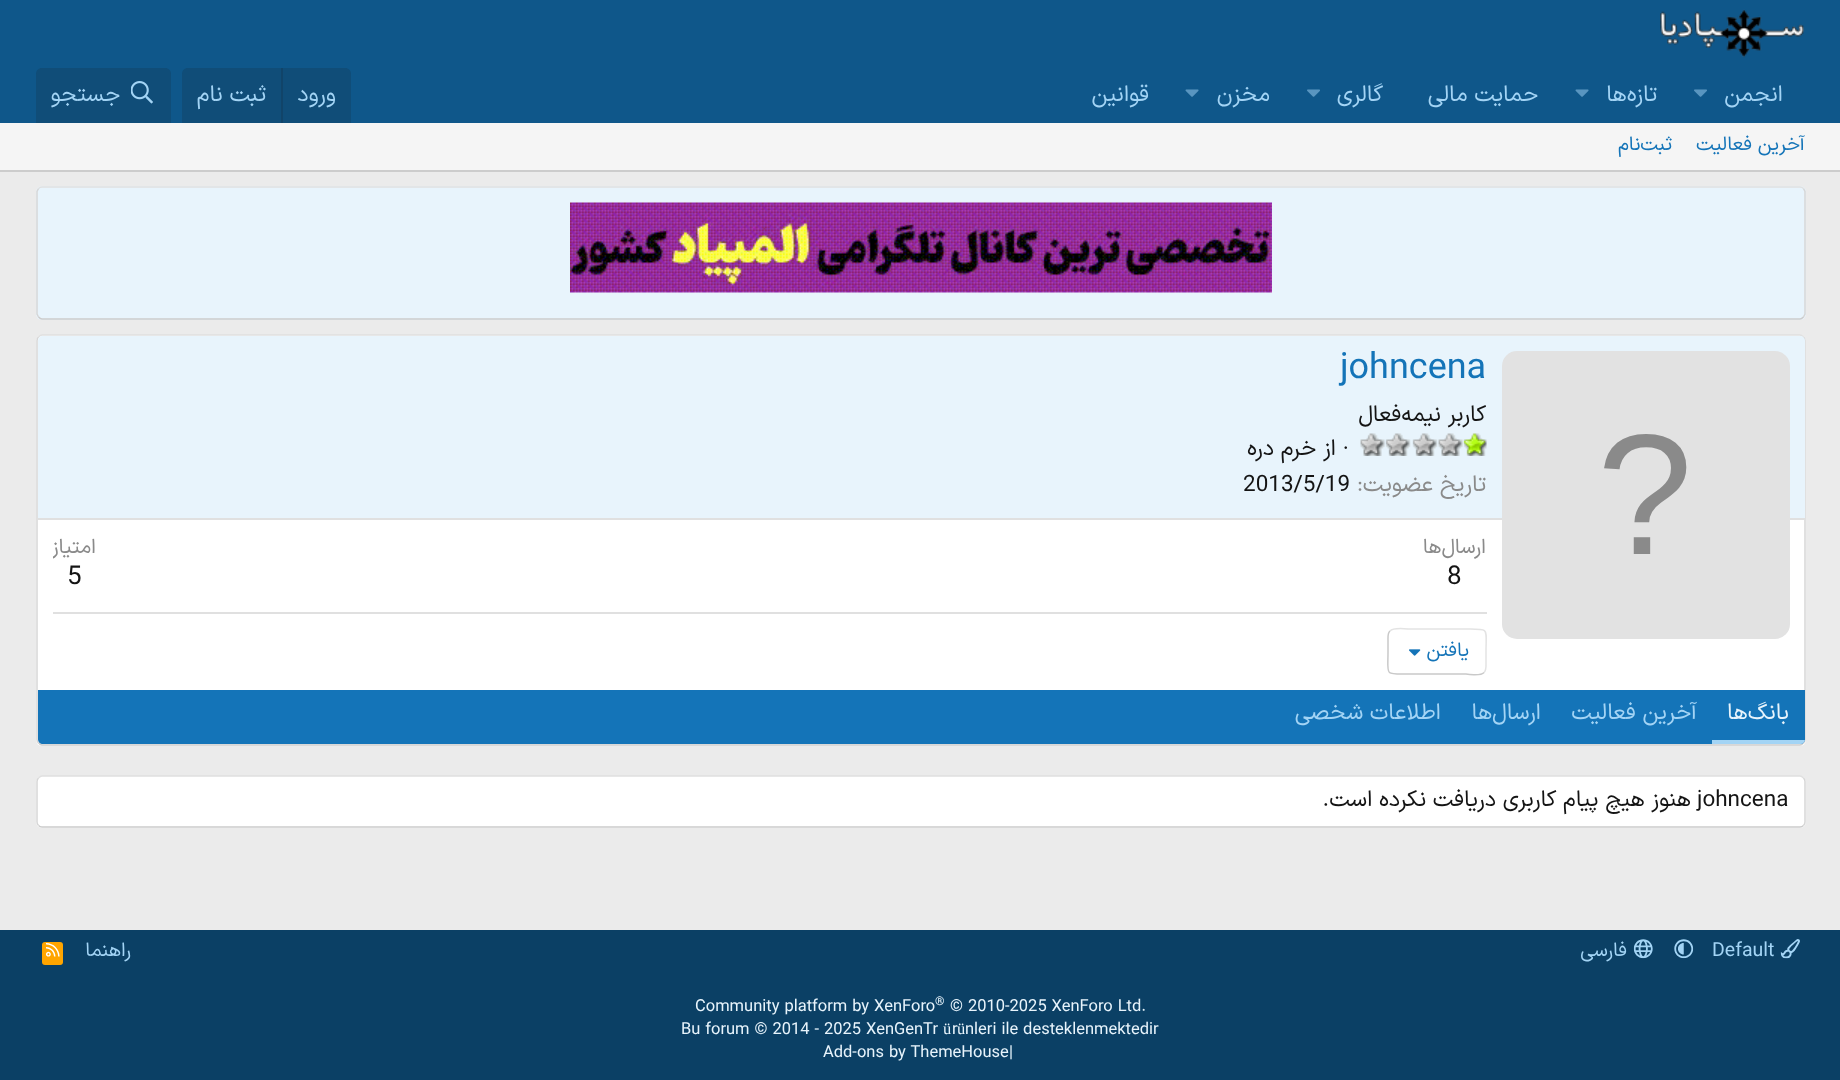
<svg xmlns="http://www.w3.org/2000/svg" width="1840" height="1080" viewBox="0 0 1840 1080">
  <defs>
    <clipPath id="clip1"><path d="M38 690H1805V739C1805 742 1803 744 1800 744H43C40 744 38 742 38 739Z"/></clipPath>
    <clipPath id="clip2"><path d="M53 534h43v63H53z"/></clipPath>
  </defs>
  <rect width="100%" height="100%" fill="#ebebeb"/>
  <path d="M0 0h1840v123H0z" fill="#0f578a"/>
  <image x="1660" y="9" width="145" height="49" href="img/1.png"/>
  <image x="1694" y="89" width="13" height="8" href="img/2.png"/>
  <image x="1575" y="89" width="14" height="8" href="img/3.png"/>
  <image x="1307" y="89" width="13" height="8" href="img/2.png"/>
  <image x="1185" y="89" width="14" height="8" href="img/3.png"/>
  <path d="M188 68H345C348.5 68 351 70.5 351 74V123H182V74C182 70.5 184.5 68 188 68Z" fill="#104d78"/>
  <path d="M281 68h2v55H281z" fill="#114469"/>
  <path d="M42 68H165C168.5 68 171 70.5 171 74V123H36V74C36 70.5 38.5 68 42 68Z" fill="#104d78"/>
  <image x="131" y="81" width="22" height="23" href="img/4.png"/>
  <path d="M0 123h1840v47H0z" fill="#f5f5f5"/>
  <path d="M0 170h1840v2H0z" fill="#ccc"/>
  <rect x="36" y="186" width="1770" height="134" rx="6" fill="#e8f4fc"/>
  <path d="M38.5 188.5C39.5 187.5 40.5 187 42 187H1800C1801.5 187 1802.5 187.5 1803.5 188.5" fill="none" stroke="#e0e0e0" stroke-width="1.5"/>
  <path d="M1803.5 188.5L1805 191.5V314L1803.5 317" fill="none" stroke="#d6d6d6" stroke-width="1.5"/>
  <path d="M1803.5 317C1802.5 318 1801.5 319 1800 319H42C40.5 319 39.5 318 38.5 317" fill="none" stroke="#ccc" stroke-width="1.5"/>
  <path d="M38.5 317L37 314V191.5L38.5 188.5" fill="none" stroke="#d6d6d6" stroke-width="1.5"/>
  <image x="570" y="202" width="702" height="91" href="img/5.png"/>
  <rect x="36" y="335" width="1770" height="411" rx="6" fill="#fff"/>
  <path d="M38.5 337C39.5 336 40.5 335 42 335H1800C1801.5 335 1802.5 336 1803.5 337" fill="none" stroke="#e0e0e0" stroke-width="1.5"/>
  <path d="M1803.5 337C1804.5 338 1805 339 1805 340.5V739.5C1805 741 1804.5 742 1803.5 743" fill="none" stroke="#d6d6d6" stroke-width="1.5"/>
  <path d="M1803.5 743C1802.5 744 1801.5 745 1800 745H42C40.5 745 39.5 744 38.5 743" fill="none" stroke="#ccc" stroke-width="1.5"/>
  <path d="M38.5 743C37.5 742 37 741 37 739.5V340.5C37 339 37.5 338 38.5 337" fill="none" stroke="#d6d6d6" stroke-width="1.5"/>
  <path d="M43 336H1800C1803 336 1805 338 1805 341V519H38V341C38 338 40 336 43 336Z" fill="#e8f4fc"/>
  <path d="M38 518h1767v2H38z" fill="#e0e0e0"/>
  <rect x="1502" y="351" width="288" height="288" rx="15" fill="#e2e2e2"/>
  <image x="1360" y="433" width="127" height="23" href="img/6.png"/>
  <path d="M53 612h1434v2H53z" fill="#e0e0e0"/>
  <path d="M1390 631C1393.5 627 1408 629 1408 629H1466C1490 629 1486 627.5 1486 652V663C1486 666 1486.5 670.5 1484 672.5" fill="none" stroke="#e3e3e3" stroke-width="1.5"/>
  <path d="M1484 672.5C1480.5 676.5 1466 674 1466 674H1408C1384 674 1388 676 1388 652V640C1388 637.5 1387.5 633 1390 631" fill="none" stroke="#c9c9c9" stroke-width="1.5"/>
  <image x="1409" y="649" width="12" height="7" href="img/7.png"/>
  <path d="M38 690H1805V739C1805 742 1803 744 1800 744H43C40 744 38 742 38 739Z" fill="#1474b8"/>
  <g clip-path="url(#clip1)">
    <path d="M1712 740h93v4H1712z" fill="#a3d4f5"/>
  </g>
  <rect x="36" y="776" width="1770" height="52" rx="6" fill="#fff"/>
  <path d="M38.5 778C39.5 777 40.5 776 42 776H1800C1801.5 776 1802.5 777 1803.5 778" fill="none" stroke="#e0e0e0" stroke-width="1.5"/>
  <path d="M1803.5 778C1804.5 779 1805 780 1805 781.5V822C1805 823.5 1804.5 824.5 1803.5 825.5" fill="none" stroke="#d6d6d6" stroke-width="1.5"/>
  <path d="M1803.5 825.5C1802.5 826.5 1801.5 827 1800 827H42C40.5 827 39.5 826.5 38.5 825.5" fill="none" stroke="#ccc" stroke-width="1.5"/>
  <path d="M38.5 825.5C37.5 824.5 37 823.5 37 822V781.5C37 780 37.5 779 38.5 778" fill="none" stroke="#d6d6d6" stroke-width="1.5"/>
  <path d="M0 930h1840v150H0z" fill="#0b4065"/>
  <image x="1780" y="939" width="20" height="20" href="img/8.png"/>
  <image x="1674" y="939" width="20" height="20" href="img/9.png"/>
  <image x="1633" y="939" width="20" height="20" href="img/10.png"/>
  <rect x="42" y="942" width="21" height="23" rx="3" fill="#ffa500"/>
  <image x="46" y="943" width="14" height="14" href="img/11.png"/>
  <g font-family="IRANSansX" font-size="22.5" direction="rtl" fill="#a3d4f5">
    <text x="1783" y="101">انجمن</text>
    <text x="1657" y="101">تازه‌ها</text>
    <text x="1538" y="101">حمایت مالی</text>
    <text x="1383" y="101">گالری</text>
    <text x="1270" y="101">مخزن</text>
    <text x="1149" y="101">قوانین</text>
    <text x="336" y="101">ورود</text>
    <text x="266" y="101">ثبت نام</text>
    <text x="120" y="101">جستجو</text>
  </g>
  <g font-family="IRANSansX" font-size="19.5" direction="rtl" fill="#1474b8">
    <text x="1805" y="150">آخرین فعالیت</text>
    <text x="1672" y="150">ثبت‌نام</text>
  </g>
  <text x="1597" y="554" font-family="Liberation Sans" font-size="172" fill="#8a8a8a">?</text>
  <text x="1340" y="378" font-family="IRANSansX" font-size="36" fill="#1474b8">johncena</text>
  <text x="1486" y="421" font-family="IRANSansX" font-size="22.5" direction="rtl" fill="#141414">کاربر نیمه‌فعال</text>
  <text x="1342" y="455" font-family="Liberation Serif" font-size="22.5" fill="#141414">·</text>
  <g font-family="IRANSansX" font-size="22.5" direction="rtl" fill="#141414">
    <text x="1336" y="455">از</text>
    <text x="1316" y="455">خرم دره</text>
  </g>
  <text x="1486" y="491" font-family="IRANSansX" font-size="22.5" direction="rtl" fill="#8a8a8a">تاریخ عضویت</text>
  <text x="1357" y="491" font-family="IRANSansX" font-size="22.5" fill="#8a8a8a">:</text>
  <text x="1243" y="491" font-family="IRANSansX" font-size="22.5" fill="#141414">2013/5/19</text>
  <text x="1486" y="553" font-family="IRANSansX" font-size="20.5" direction="rtl" fill="#8a8a8a">ارسال‌ها</text>
  <text x="1447" y="584" font-family="IRANSansX" font-size="26" fill="#141414">8</text>
  <g clip-path="url(#clip2)">
    <text x="96" y="553" font-family="IRANSansX" font-size="20.5" direction="rtl" fill="#8a8a8a">امتیاز</text>
  </g>
  <text x="67" y="584" font-family="IRANSansX" font-size="26" fill="#141414">5</text>
  <text x="1469" y="656" font-family="IRANSansX" font-size="19.5" direction="rtl" fill="#1474b8">یافتن</text>
  <text x="1789" y="719" font-family="IRANSansX" font-size="22.5" direction="rtl" fill="#e8f4fc">بانگ‌ها</text>
  <g font-family="IRANSansX" font-size="22.5" direction="rtl" fill="#a3d4f5">
    <text x="1697" y="719">آخرین فعالیت</text>
    <text x="1541" y="719">ارسال‌ها</text>
    <text x="1441" y="719">اطلاعات شخصی</text>
  </g>
  <text x="1697" y="806" font-family="IRANSansX" font-size="22.5" fill="#141414">johncena</text>
  <text x="1691" y="806" font-family="IRANSansX" font-size="22.5" direction="rtl" fill="#141414">هنوز هیچ پیام کاربری دریافت نکرده است.</text>
  <text x="1712" y="956" font-family="IRANSansX" font-size="19.5" fill="#a3d4f5">Default</text>
  <g font-family="IRANSansX" font-size="19.5" direction="rtl" fill="#a3d4f5">
    <text x="1627" y="956">فارسی</text>
    <text x="131" y="956">راهنما</text>
  </g>
  <text x="950" y="1011" font-family="IRANSansX" font-size="16.5" fill="#e8f4fc">© 2010-2025 XenForo Ltd.</text>
  <text x="935" y="1005" font-family="IRANSansX" font-size="12" fill="#e8f4fc">®</text>
  <g font-family="IRANSansX" font-size="16.5" fill="#e8f4fc">
    <text x="695" y="1011">Community platform by XenForo</text>
    <text x="965" y="1034">nleri ile desteklenmektedir</text>
  </g>
  <text x="957" y="1034" font-family="Liberation Serif" font-size="16.5" fill="#e8f4fc">ü</text>
  <text x="952" y="1034" font-family="IRANSansX" font-size="16.5" fill="#e8f4fc">r</text>
  <text x="943" y="1034" font-family="Liberation Serif" font-size="16.5" fill="#e8f4fc">ü</text>
  <g font-family="IRANSansX" font-size="16.5" fill="#e8f4fc">
    <text x="681" y="1034">Bu forum © 2014 - 2025 XenGenTr</text>
    <text x="1009" y="1057">|</text>
    <text x="823" y="1057">Add-ons by ThemeHouse</text>
  </g>
</svg>
